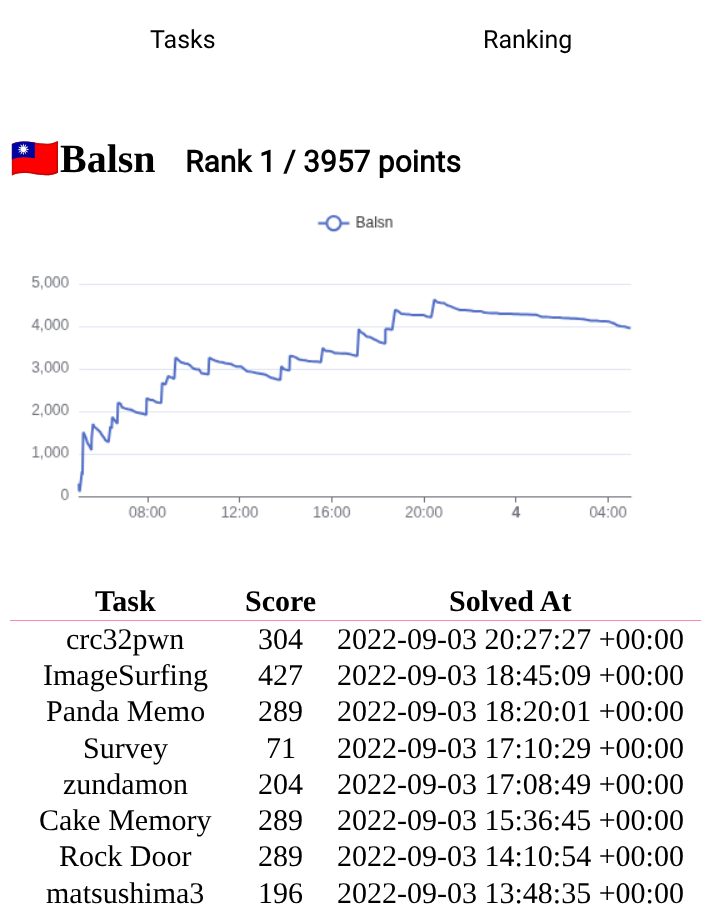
<svg xmlns="http://www.w3.org/2000/svg" width="709" height="924" viewBox="0 0 709 924">
  <rect width="100%" height="100%" fill="#fff"/>
  <image x="31" y="214" width="602" height="304" href="img/1.png"/>
  <path d="M10 620h691v1H10z" fill="#fe86b3"/>
  <g font-family="Roboto" font-size="25" fill="#000">
    <text x="150" y="48">Tasks</text>
    <text x="483" y="48">Ranking</text>
  </g>
  <text x="10" y="172" font-family="Noto Color Emoji" font-size="40" font-weight="bold" fill="#000">🇹🇼</text>
  <text x="60" y="172" font-family="Liberation Serif" font-size="40" font-weight="bold" fill="#000">Balsn</text>
  <text x="185" y="172" font-family="Roboto" font-size="30" font-weight="bold" fill="#000">Rank 1 / 3957 points</text>
  <g font-family="Liberation Serif" font-size="30" font-weight="bold" fill="#000">
    <text x="95" y="611">Task</text>
    <text x="245" y="611">Score</text>
    <text x="449" y="611">Solved At</text>
  </g>
  <g font-family="Liberation Serif" font-size="30" fill="#000">
    <text x="66" y="649">crc32pwn</text>
    <text x="258" y="649">304</text>
    <text x="337" y="649">2022-09-03 20:27:27 +00:00</text>
    <text x="43" y="685">ImageSurfing</text>
    <text x="258" y="685">427</text>
    <text x="337" y="685">2022-09-03 18:45:09 +00:00</text>
    <text x="46" y="721">Panda Memo</text>
    <text x="258" y="721">289</text>
    <text x="337" y="721">2022-09-03 18:20:01 +00:00</text>
    <text x="83" y="758">Survey</text>
    <text x="266" y="758">71</text>
    <text x="337" y="758">2022-09-03 17:10:29 +00:00</text>
    <text x="63" y="794">zundamon</text>
    <text x="258" y="794">204</text>
    <text x="337" y="794">2022-09-03 17:08:49 +00:00</text>
    <text x="39" y="830">Cake Memory</text>
    <text x="258" y="830">289</text>
    <text x="337" y="830">2022-09-03 15:36:45 +00:00</text>
    <text x="59" y="866">Rock Door</text>
    <text x="258" y="866">289</text>
    <text x="337" y="866">2022-09-03 14:10:54 +00:00</text>
    <text x="46" y="903">matsushima3</text>
    <text x="258" y="903">196</text>
    <text x="337" y="903">2022-09-03 13:48:35 +00:00</text>
  </g>
</svg>
